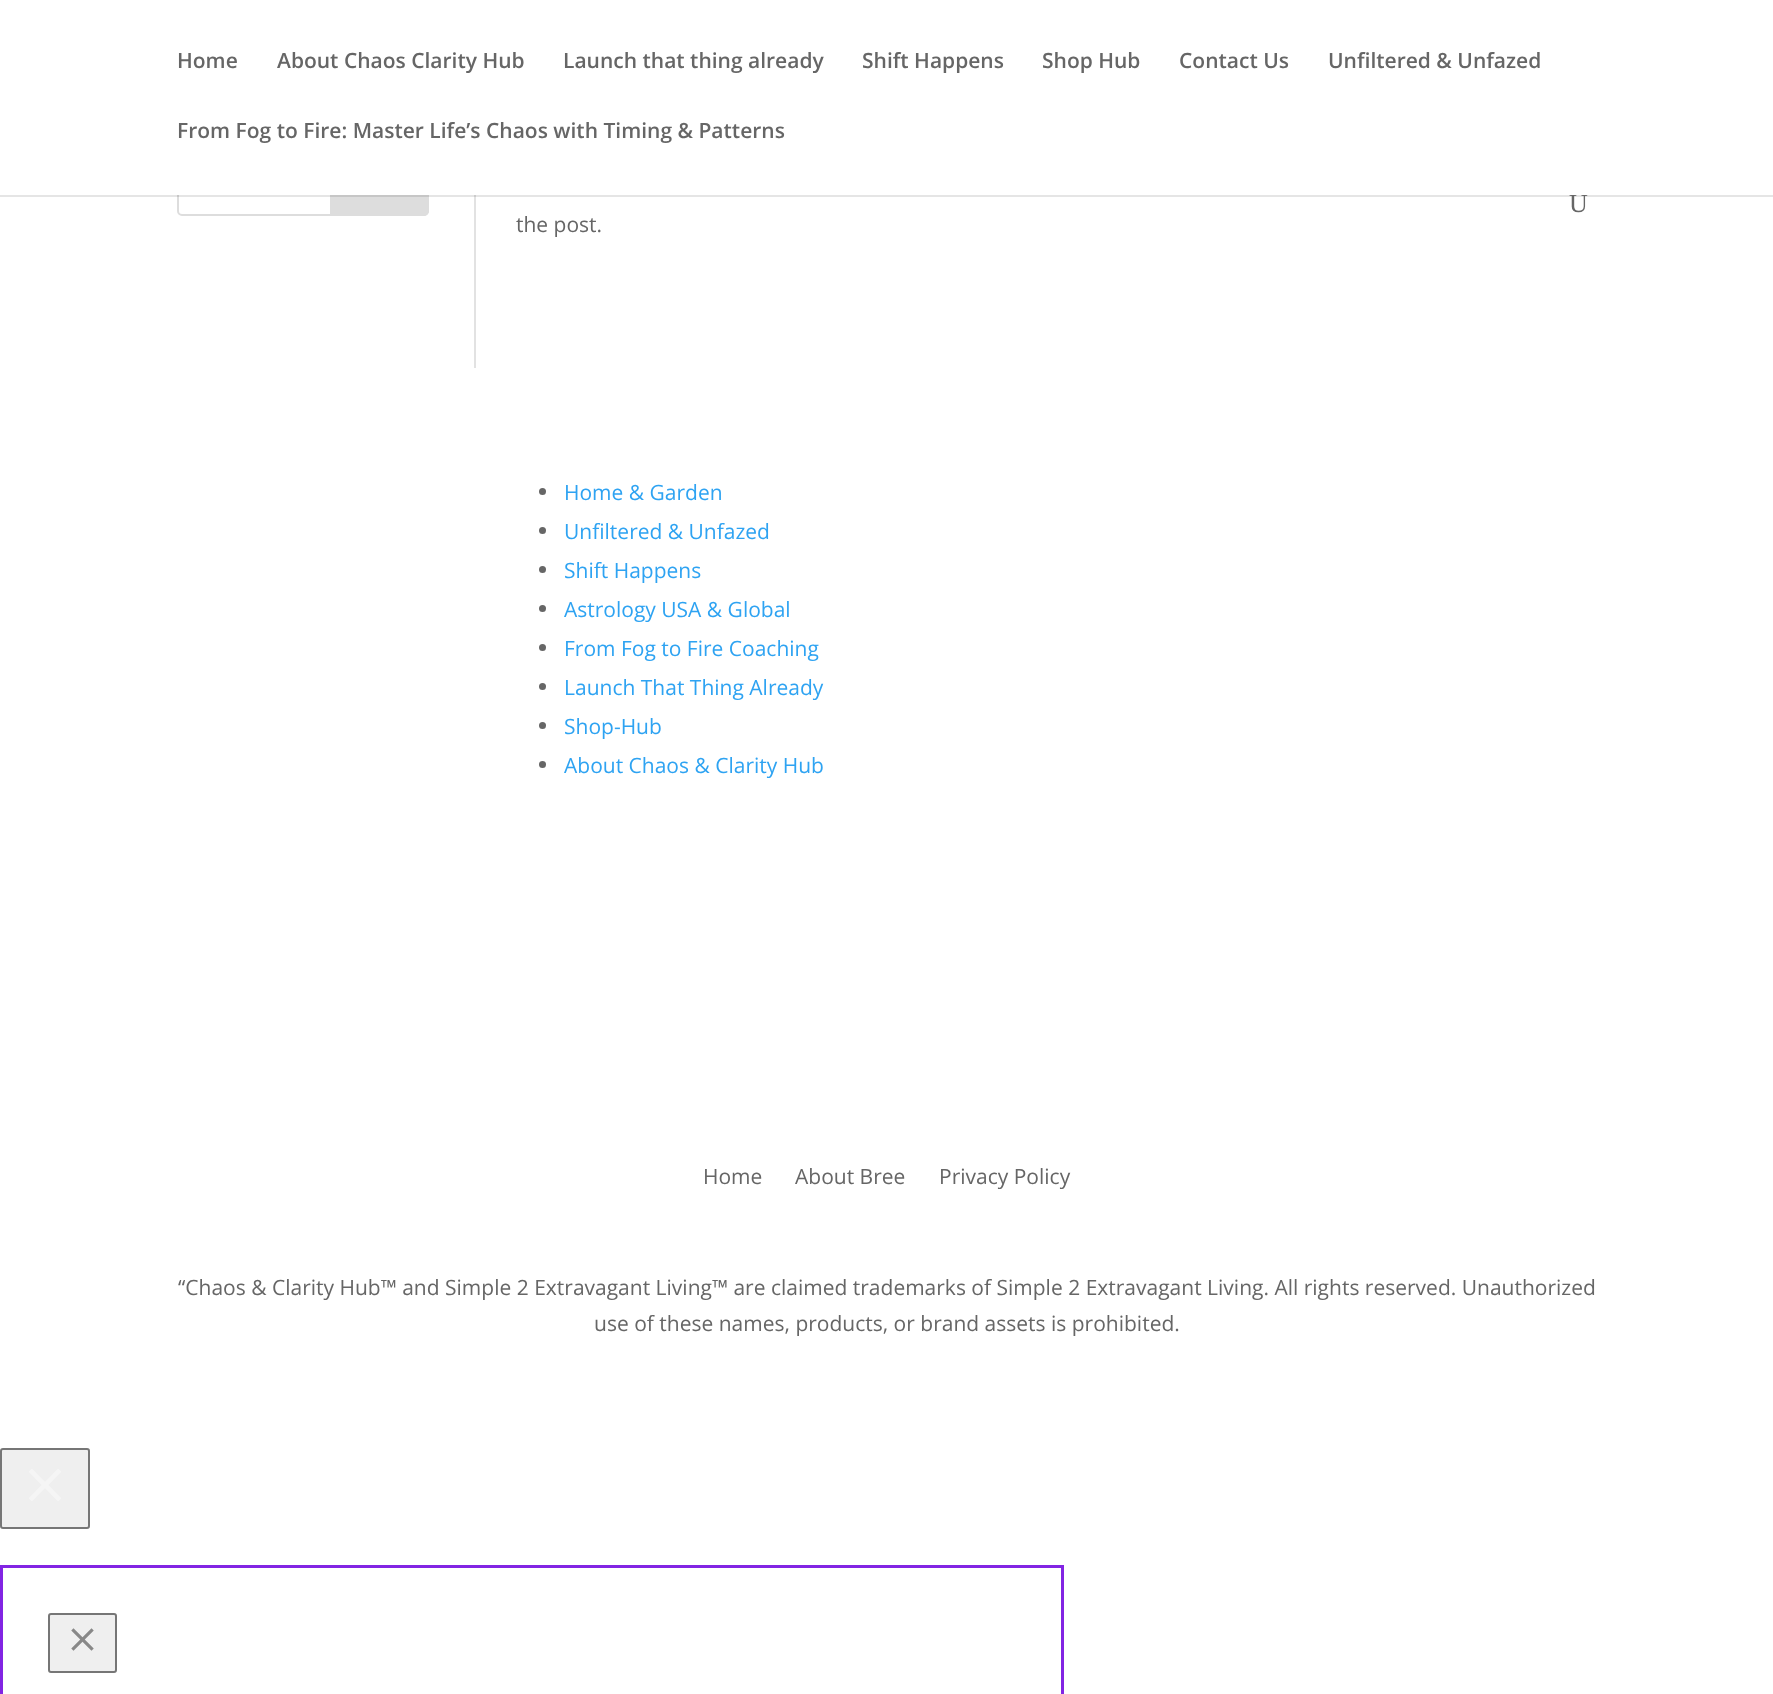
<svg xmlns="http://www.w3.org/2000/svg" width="1773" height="1694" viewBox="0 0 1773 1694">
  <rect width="100%" height="100%" fill="#fff"/>
  <path d="M474 195h2v173H474z" fill="#e2e2e2"/>
  <rect x="178" y="157" width="250" height="58" rx="4" fill="none" stroke="#ddd" stroke-width="2"/>
  <path d="M331 157H424C426 157 428 159 428 161V211C428 213 426 215 424 215H331Z" fill="#ddd" stroke="#ddd" stroke-width="2"/>
  <path d="M0 195h1773v2H0z" fill="#0000001a"/>
  <path d="M177 156h252v39H177z" fill="#fff"/>
  <circle cx="542.5" cy="491.5" r="3.5" fill="#666"/>
  <circle cx="542.5" cy="530.5" r="3.5" fill="#666"/>
  <circle cx="542.5" cy="569.5" r="3.5" fill="#666"/>
  <circle cx="542.5" cy="608.5" r="3.5" fill="#666"/>
  <circle cx="542.5" cy="647.5" r="3.5" fill="#666"/>
  <circle cx="542.5" cy="686.5" r="3.5" fill="#666"/>
  <circle cx="542.5" cy="725.5" r="3.5" fill="#666"/>
  <circle cx="542.5" cy="764.5" r="3.5" fill="#666"/>
  <rect x="1" y="1449" width="88" height="79" rx="2" fill="#efefef" stroke="#767676" stroke-width="2"/>
  <image x="29" y="1469" width="32" height="32" href="img/1.png"/>
  <path d="M1.5 1566.5h1061v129H1.5z" fill="none" stroke="#8224e3" stroke-width="3"/>
  <rect x="49" y="1614" width="67" height="58" rx="2" fill="#efefef" stroke="#767676" stroke-width="2"/>
  <image x="71" y="1628" width="23" height="23" href="img/2.png"/>
  <g font-family="Open Sans" font-size="21" font-weight="600" fill="#666">
    <text x="177" y="68">Home</text>
    <text x="277" y="68">About Chaos Clarity Hub</text>
    <text x="563" y="68">Launch that thing already</text>
    <text x="862" y="68">Shift Happens</text>
    <text x="1042" y="68">Shop Hub</text>
    <text x="1179" y="68">Contact Us</text>
    <text x="1328" y="68">Unfiltered &amp; Unfazed</text>
    <text x="177" y="138">From Fog to Fire: Master Life’s Chaos with Timing &amp; Patterns</text>
  </g>
  <text x="1569" y="212" font-family="Liberation Serif" font-size="26" fill="#666">U</text>
  <text x="516" y="232" font-family="Open Sans" font-size="21" fill="#666">the post.</text>
  <g font-family="Open Sans" font-size="21" fill="#2ea3f2">
    <text x="564" y="500">Home &amp; Garden</text>
    <text x="564" y="539">Unfiltered &amp; Unfazed</text>
    <text x="564" y="578">Shift Happens</text>
    <text x="564" y="617">Astrology USA &amp; Global</text>
    <text x="564" y="656">From Fog to Fire Coaching</text>
    <text x="564" y="695">Launch That Thing Already</text>
    <text x="564" y="734">Shop-Hub</text>
    <text x="564" y="773">About Chaos &amp; Clarity Hub</text>
  </g>
  <g font-family="Open Sans" font-size="21" fill="#666">
    <text x="703" y="1184">Home</text>
    <text x="795" y="1184">About Bree</text>
    <text x="939" y="1184">Privacy Policy</text>
    <text x="178" y="1295">“Chaos &amp; Clarity Hub™ and Simple 2 Extravagant Living™ are claimed trademarks of Simple 2 Extravagant Living. All rights reserved. Unauthorized</text>
    <text x="594" y="1331">use of these names, products, or brand assets is prohibited.</text>
  </g>
</svg>
